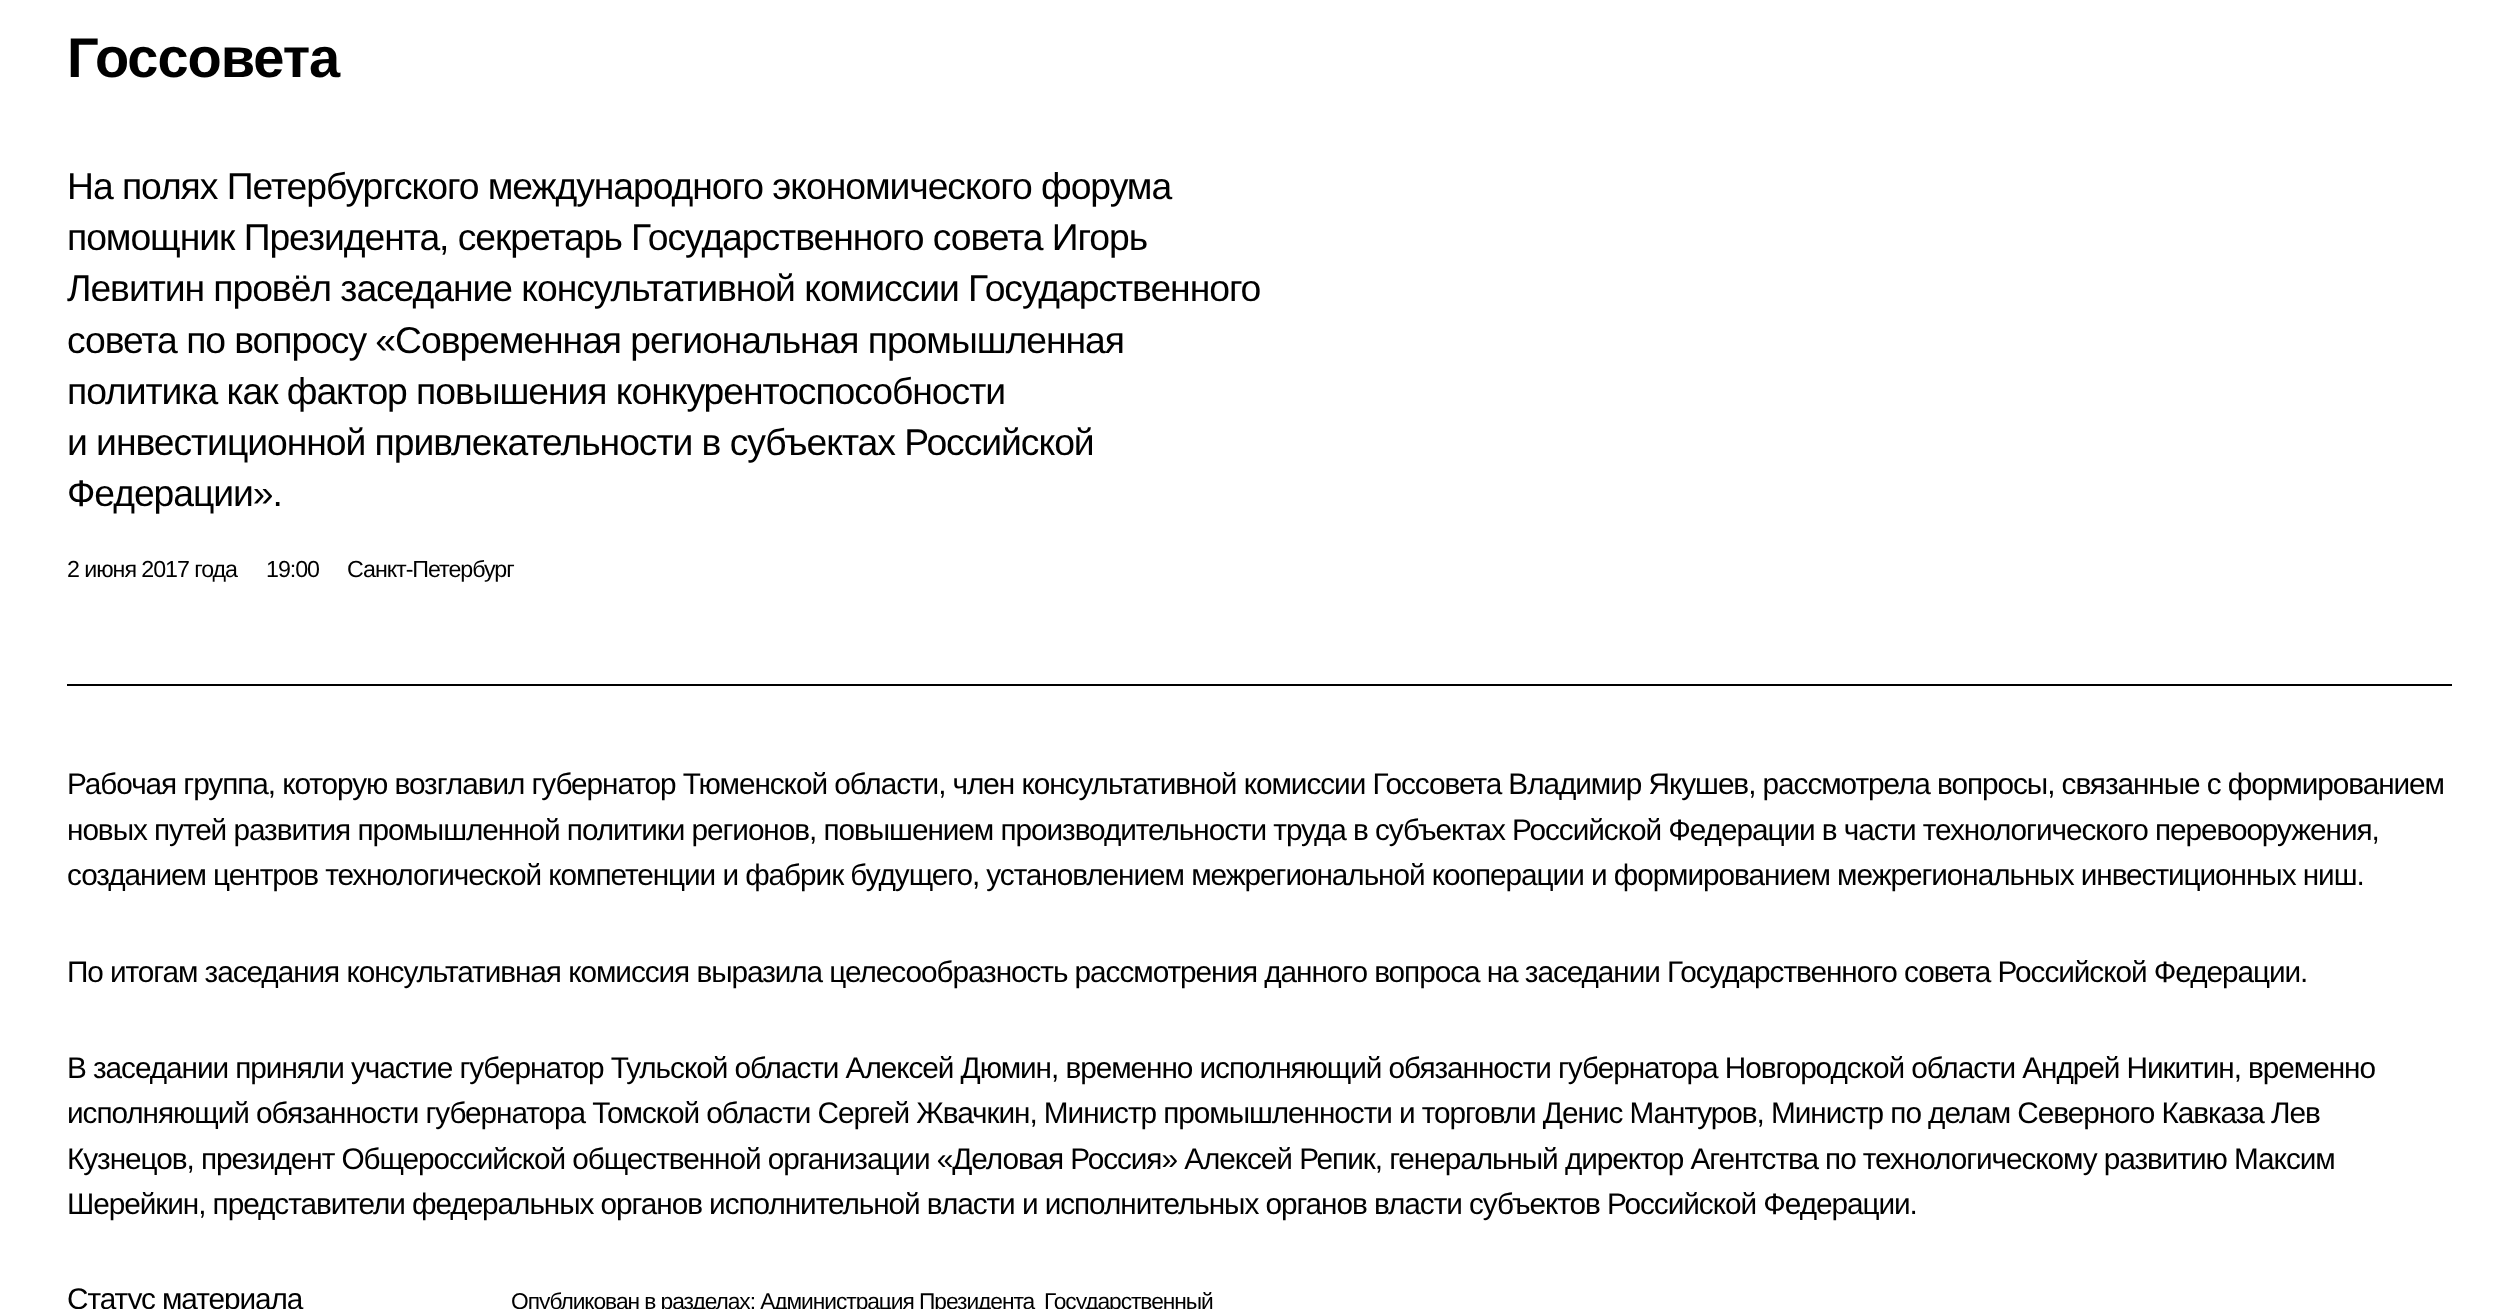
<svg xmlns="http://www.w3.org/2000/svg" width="2518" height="1309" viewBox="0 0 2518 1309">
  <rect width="100%" height="100%" fill="#fff"/>
  <path d="M67 684h2385v2H67z" fill="#000"/>
  <text x="67" y="77" font-family="Liberation Sans" font-size="56" font-weight="bold" letter-spacing="-1.05" fill="#000">Госсовета</text>
  <g font-family="Liberation Sans" font-size="37.3" letter-spacing="-1.05" fill="#000">
    <text x="67" y="199">На полях Петербургского международного экономического форума</text>
    <text x="67" y="250">помощник Президента, секретарь Государственного совета Игорь</text>
    <text x="67" y="301">Левитин провёл заседание консультативной комиссии Государственного</text>
    <text x="67" y="353">совета по вопросу «Современная региональная промышленная</text>
    <text x="67" y="404">политика как фактор повышения конкурентоспособности</text>
    <text x="67" y="455">и инвестиционной привлекательности в субъектах Российской</text>
    <text x="67" y="506">Федерации».</text>
  </g>
  <g font-family="Liberation Sans" font-size="23.25" letter-spacing="-1.05" fill="#000">
    <text x="67" y="577">2 июня 2017 года</text>
    <text x="266" y="577">19:00</text>
    <text x="347" y="577">Санкт-Петербург</text>
  </g>
  <g font-family="Liberation Sans" font-size="29.75" letter-spacing="-1.05" fill="#000">
    <text x="67" y="794">Рабочая группа, которую возглавил губернатор Тюменской области, член консультативной комиссии Госсовета Владимир Якушев, рассмотрела вопросы, связанные с формированием</text>
    <text x="67" y="840">новых путей развития промышленной политики регионов, повышением производительности труда в субъектах Российской Федерации в части технологического перевооружения,</text>
    <text x="67" y="885">созданием центров технологической компетенции и фабрик будущего, установлением межрегиональной кооперации и формированием межрегиональных инвестиционных ниш.</text>
    <text x="67" y="982">По итогам заседания консультативная комиссия выразила целесообразность рассмотрения данного вопроса на заседании Государственного совета Российской Федерации.</text>
    <text x="67" y="1078">В заседании приняли участие губернатор Тульской области Алексей Дюмин, временно исполняющий обязанности губернатора Новгородской области Андрей Никитин, временно</text>
    <text x="67" y="1123">исполняющий обязанности губернатора Томской области Сергей Жвачкин, Министр промышленности и торговли Денис Мантуров, Министр по делам Северного Кавказа Лев</text>
    <text x="67" y="1169">Кузнецов, президент Общероссийской общественной организации «Деловая Россия» Алексей Репик, генеральный директор Агентства по технологическому развитию Максим</text>
    <text x="67" y="1214">Шерейкин, представители федеральных органов исполнительной власти и исполнительных органов власти субъектов Российской Федерации.</text>
    <text x="67" y="1309">Статус материала</text>
  </g>
  <g font-family="Liberation Sans" font-size="22.75" letter-spacing="-1.05" fill="#000">
    <text x="511" y="1309">Опубликован в разделах: Администрация Президента</text>
    <text x="1044" y="1309">Государственный</text>
  </g>
</svg>
